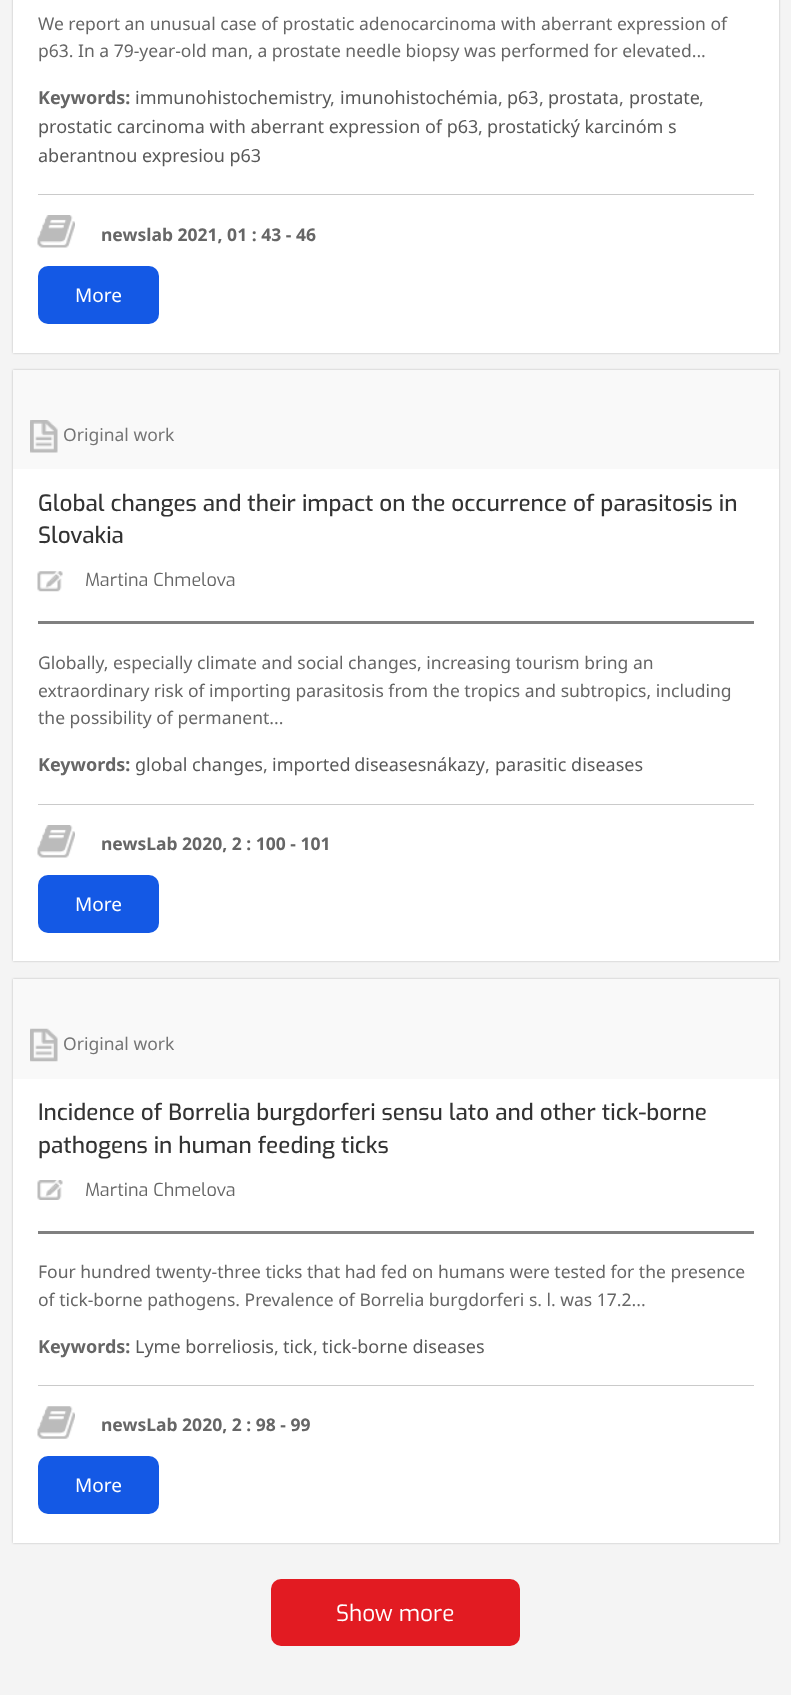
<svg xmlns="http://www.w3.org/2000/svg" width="791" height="1706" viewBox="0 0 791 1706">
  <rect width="100%" height="100%" fill="#f4f4f4"/>
  <path d="M13 -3h766v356H13z" fill="#bbb" filter="blur(1px)"/>
  <path d="M13 0h766v353H13z" fill="#fff"/>
  <path d="M38 194h716v1H38z" fill="#cacaca"/>
  <image x="37" y="215" width="38" height="33" href="img/1.png"/>
  <rect x="38" y="266" width="121" height="58" rx="10" fill="#1459e5"/>
  <path d="M13 370h766v591H13z" fill="#bbb" filter="blur(1px)"/>
  <path d="M13 469h766v492H13z" fill="#fff"/>
  <path d="M13 370h766v99H13z" fill="#f9f9f9"/>
  <image x="30" y="420" width="28" height="33" href="img/2.png"/>
  <image x="37" y="571" width="26" height="21" href="img/3.png"/>
  <path d="M38 621h716v3H38z" fill="#808080"/>
  <path d="M38 804h716v1H38z" fill="#cacaca"/>
  <image x="37" y="825" width="38" height="33" href="img/4.png"/>
  <rect x="38" y="875" width="121" height="58" rx="10" fill="#1459e5"/>
  <path d="M13 979h766v564H13z" fill="#bbb" filter="blur(1px)"/>
  <path d="M13 1079h766v464H13z" fill="#fff"/>
  <path d="M13 979h766v100H13z" fill="#f9f9f9"/>
  <image x="30" y="1028" width="28" height="34" href="img/5.png"/>
  <image x="37" y="1180" width="26" height="20" href="img/6.png"/>
  <path d="M38 1231h716v3H38z" fill="#808080"/>
  <path d="M38 1385h716v1H38z" fill="#cacaca"/>
  <image x="37" y="1406" width="38" height="33" href="img/7.png"/>
  <rect x="38" y="1456" width="121" height="58" rx="10" fill="#1459e5"/>
  <rect x="271" y="1579" width="249" height="67" rx="10" fill="#e21b22"/>
  <path d="M0 1695h791v11H0z" fill="#fff"/>
  <g font-family="Noto Sans" font-size="17.5" fill="#666">
    <text x="38" y="30">We report an unusual case of prostatic adenocarcinoma with aberrant expression of</text>
    <text x="38" y="57">p63. In a 79-year-old man, a prostate needle biopsy was performed for elevated...</text>
  </g>
  <text x="38" y="104" font-family="Noto Sans" font-size="18" font-weight="bold" fill="#666">Keywords:</text>
  <g font-family="Noto Sans" font-size="18" fill="#585858">
    <text x="135" y="104">immunohistochemistry</text>
    <text x="340" y="104">imunohistochémia</text>
    <text x="507" y="104">p63</text>
    <text x="548" y="104">prostata</text>
    <text x="629" y="104">prostate</text>
  </g>
  <g font-family="Noto Sans" font-size="18" fill="#666">
    <text x="330" y="104">,</text>
    <text x="498" y="104">,</text>
    <text x="539" y="104">,</text>
    <text x="619" y="104">,</text>
    <text x="699" y="104">,</text>
  </g>
  <text x="38" y="133" font-family="Noto Sans" font-size="18" fill="#585858">prostatic carcinoma with aberrant expression of p63</text>
  <text x="478" y="133" font-family="Noto Sans" font-size="18" fill="#666">,</text>
  <g font-family="Noto Sans" font-size="18" fill="#585858">
    <text x="487" y="133">prostatický karcinóm s</text>
    <text x="38" y="162">aberantnou expresiou p63</text>
  </g>
  <text x="101" y="241" font-family="Noto Sans" font-size="17.5" font-weight="bold" fill="#666">newslab 2021, 01 : 43 - 46</text>
  <text x="75" y="302" font-family="Noto Sans" font-size="19" fill="#fff">More</text>
  <text x="63" y="441" font-family="Noto Sans" font-size="17.5" fill="#757575">Original work</text>
  <g font-family="Exo" font-size="22.5" font-weight="500" fill="#333">
    <text x="38" y="511">Global changes and their impact on the occurrence of parasitosis in</text>
    <text x="38" y="543">Slovakia</text>
  </g>
  <text x="85" y="586" font-family="Exo" font-size="18" fill="#666">Martina Chmelova</text>
  <g font-family="Noto Sans" font-size="17.5" fill="#666">
    <text x="38" y="669">Globally, especially climate and social changes, increasing tourism bring an</text>
    <text x="38" y="697">extraordinary risk of importing parasitosis from the tropics and subtropics, including</text>
    <text x="38" y="724">the possibility of permanent...</text>
  </g>
  <text x="38" y="771" font-family="Noto Sans" font-size="18" font-weight="bold" fill="#666">Keywords:</text>
  <text x="135" y="771" font-family="Noto Sans" font-size="18" fill="#585858">global changes</text>
  <text x="263" y="771" font-family="Noto Sans" font-size="18" fill="#666">,</text>
  <text x="272" y="771" word-spacing="-1" font-family="Noto Sans" font-size="18" fill="#585858">imported diseasesnákazy</text>
  <text x="485" y="771" font-family="Noto Sans" font-size="18" fill="#666">,</text>
  <text x="495" y="771" font-family="Noto Sans" font-size="18" fill="#585858">parasitic diseases</text>
  <text x="101" y="850" font-family="Noto Sans" font-size="17.5" font-weight="bold" fill="#666">newsLab 2020, 2 : 100 - 101</text>
  <text x="75" y="911" font-family="Noto Sans" font-size="19" fill="#fff">More</text>
  <text x="63" y="1050" font-family="Noto Sans" font-size="17.5" fill="#757575">Original work</text>
  <g font-family="Exo" font-size="22.5" font-weight="500" fill="#333">
    <text x="38" y="1120">Incidence of Borrelia burgdorferi sensu lato and other tick-borne</text>
    <text x="38" y="1153">pathogens in human feeding ticks</text>
  </g>
  <text x="85" y="1196" font-family="Exo" font-size="18" fill="#666">Martina Chmelova</text>
  <g font-family="Noto Sans" font-size="17.5" fill="#666">
    <text x="38" y="1278">Four hundred twenty-three ticks that had fed on humans were tested for the presence</text>
    <text x="38" y="1306">of tick-borne pathogens. Prevalence of Borrelia burgdorferi s. l. was 17.2...</text>
  </g>
  <text x="38" y="1353" font-family="Noto Sans" font-size="18" font-weight="bold" fill="#666">Keywords:</text>
  <text x="135" y="1353" font-family="Noto Sans" font-size="18" fill="#585858">Lyme borreliosis</text>
  <text x="274" y="1353" font-family="Noto Sans" font-size="18" fill="#666">,</text>
  <text x="283" y="1353" font-family="Noto Sans" font-size="18" fill="#585858">tick</text>
  <text x="313" y="1353" font-family="Noto Sans" font-size="18" fill="#666">,</text>
  <text x="322" y="1353" font-family="Noto Sans" font-size="18" fill="#585858">tick-borne diseases</text>
  <text x="101" y="1431" font-family="Noto Sans" font-size="17.5" font-weight="bold" fill="#666">newsLab 2020, 2 : 98 - 99</text>
  <text x="75" y="1492" font-family="Noto Sans" font-size="19" fill="#fff">More</text>
  <text x="336" y="1621" font-family="Exo" font-size="22.5" fill="#fff">Show more</text>
</svg>
